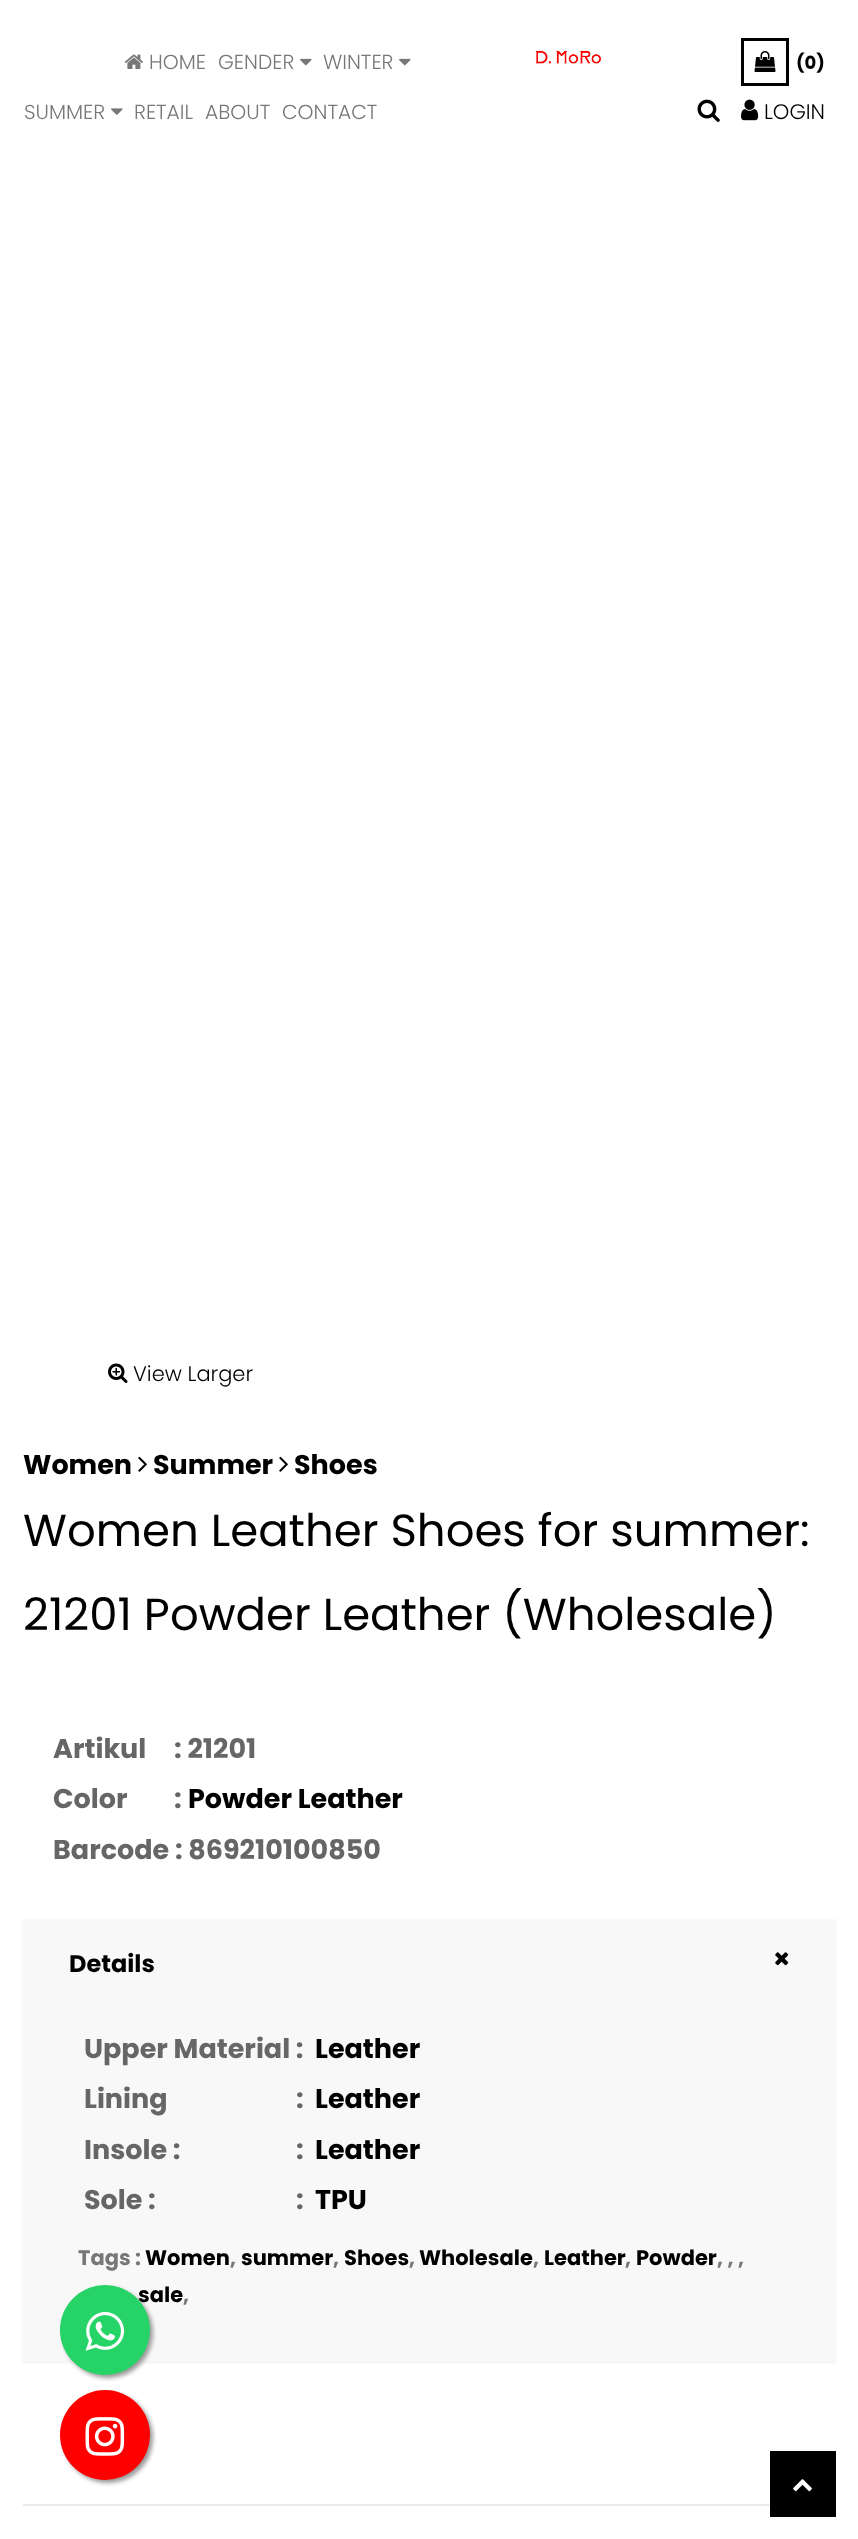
<svg xmlns="http://www.w3.org/2000/svg" width="858" height="2539" viewBox="0 0 858 2539">
  <rect width="100%" height="100%" fill="#fff"/>
  <image x="124" y="54" width="19" height="15" href="img/1.png"/>
  <image x="300" y="58" width="12" height="8" href="img/2.png"/>
  <image x="399" y="58" width="12" height="8" href="img/2.png"/>
  <image x="111" y="108" width="12" height="7" href="img/3.png"/>
  <image x="535" y="49" width="66" height="15" href="img/4.png"/>
  <path d="M742.5 39.5h45v45H742.5z" fill="none" stroke="#000" stroke-width="3"/>
  <image x="754" y="51" width="22" height="21" href="img/5.png"/>
  <image x="697" y="99" width="23" height="23" href="img/6.png"/>
  <image x="741" y="99" width="18" height="22" href="img/7.png"/>
  <image x="108" y="1363" width="20" height="20" href="img/8.png"/>
  <image x="138" y="1456" width="9" height="16" href="img/9.png"/>
  <image x="279" y="1456" width="9" height="16" href="img/9.png"/>
  <path d="M23 1920h813v443H23z" fill="#0000000d" filter="blur(1px)"/>
  <path d="M23 1919h813v442H23z" fill="#f8f8f8"/>
  <image x="775" y="1952" width="14" height="14" href="img/10.png"/>
  <path d="M23 2504h747v2H23z" fill="#eaeaea"/>
  <rect x="63" y="2288" width="90" height="90" rx="45" fill="#999" filter="blur(2px)"/>
  <rect x="63" y="2393" width="90" height="90" rx="45" fill="#999" filter="blur(2px)"/>
  <circle cx="105" cy="2435" r="45" fill="#f00"/>
  <image x="85" y="2417" width="40" height="39" href="img/12.png"/>
  <path d="M770 2451h66v66H770z" fill="#000"/>
  <image x="793" y="2479" width="19" height="13" href="img/13.png"/>
  <g font-family="Poppins" font-size="20.25" font-weight="300" fill="#777">
    <text x="149" y="69">HOME</text>
    <text x="218" y="69">GENDER</text>
    <text x="323" y="69">WINTER</text>
    <text x="24" y="119">SUMMER</text>
    <text x="134" y="119">RETAIL</text>
    <text x="205" y="119">ABOUT</text>
    <text x="282" y="119">CONTACT</text>
  </g>
  <text x="796" y="69" font-family="Poppins" font-size="18" font-weight="bold" fill="#000">(0)</text>
  <g font-family="Poppins" font-size="21" font-weight="300" fill="#000">
    <text x="764" y="119">LOGIN</text>
    <text x="133" y="1381">View Larger</text>
  </g>
  <g font-family="Poppins" font-size="27" font-weight="bold" fill="#000">
    <text x="23" y="1474">Women</text>
    <text x="153" y="1474">Summer</text>
    <text x="294" y="1474">Shoes</text>
  </g>
  <g font-family="Poppins" font-size="45" fill="#000">
    <text x="23" y="1546">Women Leather Shoes for summer:</text>
    <text x="23" y="1630">21201 Powder Leather (Wholesale)</text>
  </g>
  <g font-family="Poppins" font-size="27" font-weight="bold" fill="#666">
    <text x="53" y="1758">Artikul</text>
    <text x="174" y="1758">: 21201</text>
    <text x="53" y="1808">Color</text>
    <text x="174" y="1808">:</text>
  </g>
  <text x="188" y="1808" font-family="Poppins" font-size="27" font-weight="bold" fill="#000">Powder Leather</text>
  <text x="53" y="1859" font-family="Poppins" font-size="27" font-weight="bold" fill="#666">Barcode : 869210100850</text>
  <text x="69" y="1972" font-family="Poppins" font-size="24" font-weight="bold" fill="#000">Details</text>
  <text x="84" y="2058" font-family="Poppins" font-size="27" font-weight="bold" fill="#666">Upper Material :</text>
  <text x="315" y="2058" font-family="Poppins" font-size="27" font-weight="bold" fill="#000">Leather</text>
  <g font-family="Poppins" font-size="27" font-weight="bold" fill="#666">
    <text x="84" y="2108">Lining</text>
    <text x="296" y="2108">:</text>
  </g>
  <text x="315" y="2108" font-family="Poppins" font-size="27" font-weight="bold" fill="#000">Leather</text>
  <g font-family="Poppins" font-size="27" font-weight="bold" fill="#666">
    <text x="84" y="2159">Insole :</text>
    <text x="296" y="2159">:</text>
  </g>
  <text x="315" y="2159" font-family="Poppins" font-size="27" font-weight="bold" fill="#000">Leather</text>
  <g font-family="Poppins" font-size="27" font-weight="bold" fill="#666">
    <text x="84" y="2209">Sole :</text>
    <text x="296" y="2209">:</text>
  </g>
  <text x="315" y="2209" font-family="Poppins" font-size="27" font-weight="bold" fill="#000">TPU</text>
  <text x="78" y="2265" font-family="Poppins" font-size="21" font-weight="bold" fill="#777">Tags :</text>
  <text x="145" y="2265" font-family="Poppins" font-size="21" font-weight="bold" fill="#000">Women</text>
  <text x="230" y="2265" font-family="Poppins" font-size="21" font-weight="bold" fill="#777">,</text>
  <text x="241" y="2265" font-family="Poppins" font-size="21" font-weight="bold" fill="#000">summer</text>
  <text x="333" y="2265" font-family="Poppins" font-size="21" font-weight="bold" fill="#777">,</text>
  <text x="344" y="2265" font-family="Poppins" font-size="21" font-weight="bold" fill="#000">Shoes</text>
  <text x="409" y="2265" font-family="Poppins" font-size="21" font-weight="bold" fill="#777">,</text>
  <text x="419" y="2265" font-family="Poppins" font-size="21" font-weight="bold" fill="#000">Wholesale</text>
  <text x="533" y="2265" font-family="Poppins" font-size="21" font-weight="bold" fill="#777">,</text>
  <text x="544" y="2265" font-family="Poppins" font-size="21" font-weight="bold" fill="#000">Leather</text>
  <text x="625" y="2265" font-family="Poppins" font-size="21" font-weight="bold" fill="#777">,</text>
  <text x="636" y="2265" font-family="Poppins" font-size="21" font-weight="bold" fill="#000">Powder</text>
  <text x="717" y="2265" font-family="Poppins" font-size="21" font-weight="bold" fill="#777">, , ,</text>
  <text x="138" y="2302" font-family="Poppins" font-size="21" font-weight="bold" fill="#000">sale</text>
  <text x="183" y="2302" font-family="Poppins" font-size="21" font-weight="bold" fill="#777">,</text>
  <circle cx="105" cy="2330" r="45" fill="#25d366"/>
  <image x="85" y="2312" width="40" height="39" href="img/11.png"/>
</svg>
